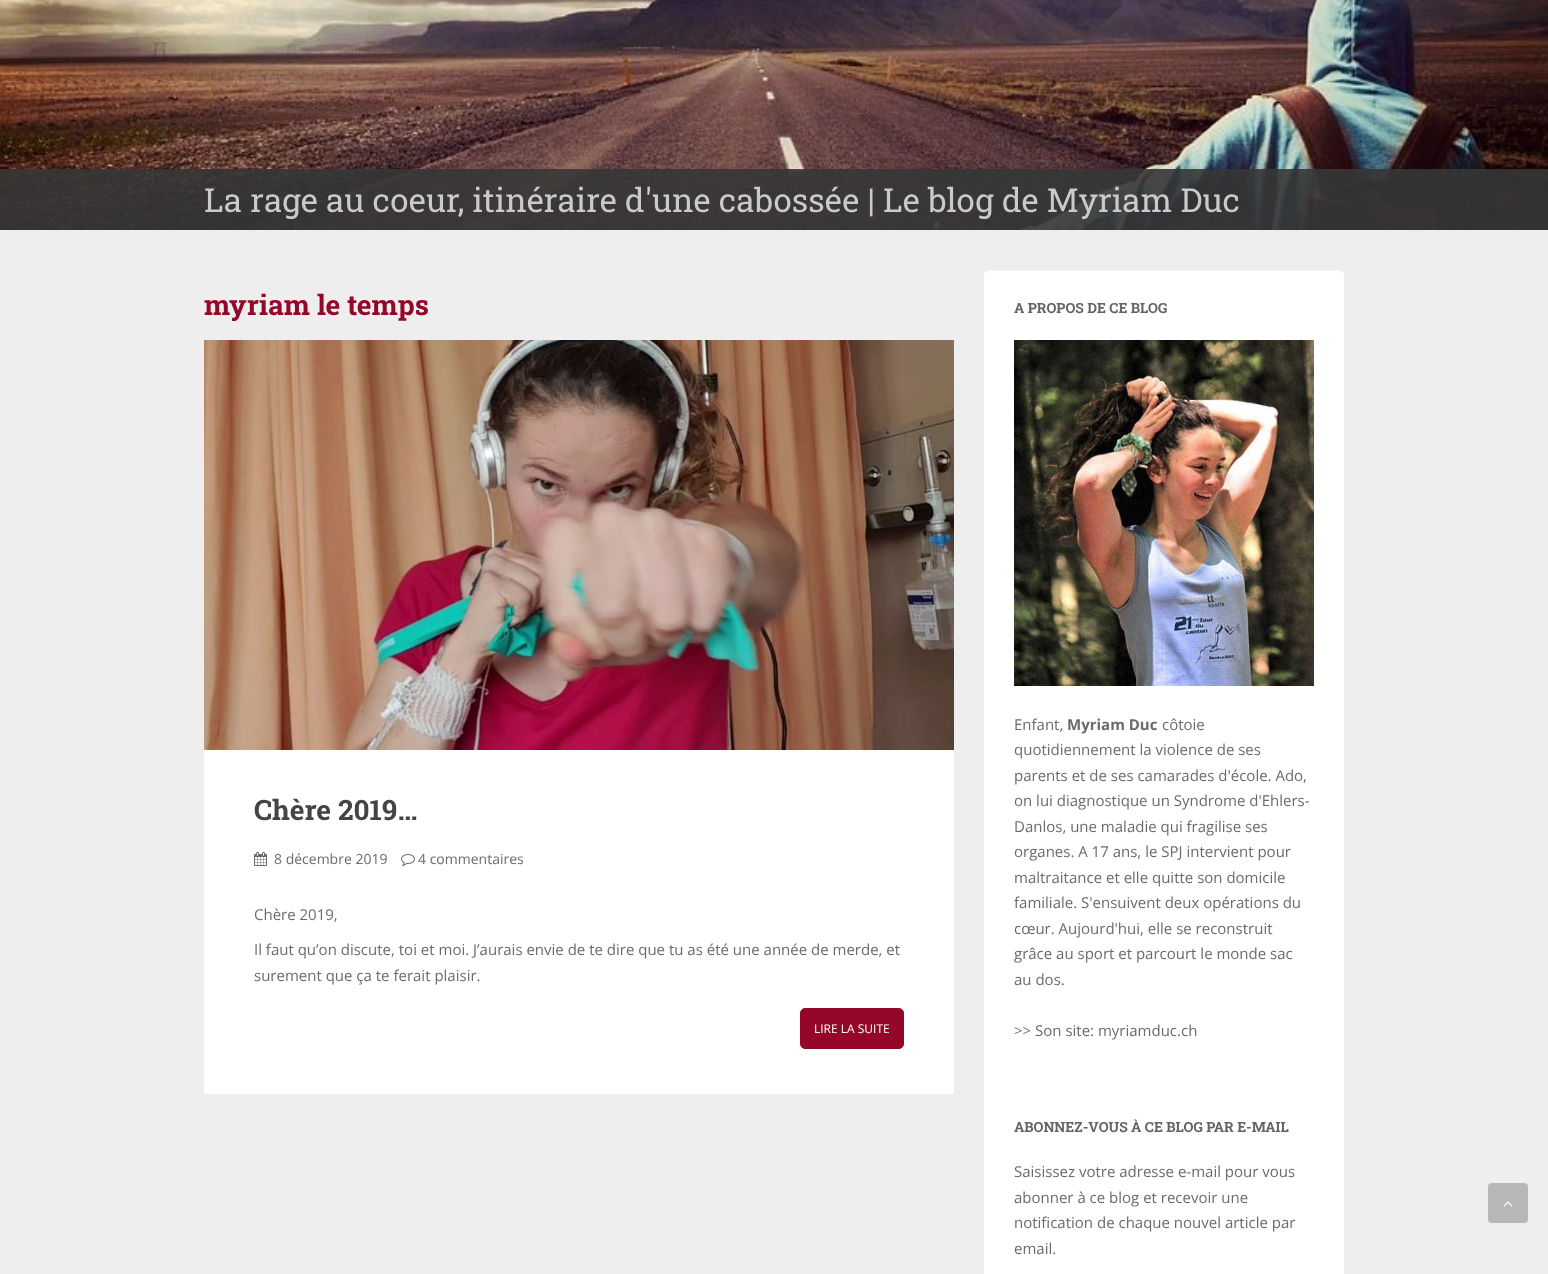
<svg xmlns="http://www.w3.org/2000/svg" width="1548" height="1274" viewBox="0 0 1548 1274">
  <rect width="100%" height="100%" fill="#eee"/>
  <image x="0" y="0" width="1548" height="230" href="img/1.png"/>
  <path d="M0 169h1548v61H0z" fill="#363636e6"/>
  <image x="204" y="340" width="750" height="410" href="img/2.png"/>
  <path d="M204 750h750v344H204z" fill="#fff"/>
  <image x="254" y="852" width="13" height="14" href="img/3.png"/>
  <image x="401" y="854" width="14" height="12" href="img/4.png"/>
  <rect x="800.5" y="1008.5" width="103" height="40" rx="4.5" fill="#950728" stroke="#950728"/>
  <rect x="984" y="270" width="360" height="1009" rx="5" fill="#fff"/>
  <path d="M989 271H1339C1342 271 1344 273 1344 276V275C1344 272 1342 270 1339 270H989C986 270 984 272 984 275V276C984 273 986 271 989 271Z" fill="#0000000d"/>
  <image x="1014" y="340" width="300" height="346" href="img/5.png"/>
  <rect x="1488" y="1183" width="40" height="40" rx="4" fill="#b7b7b7"/>
  <image x="1503" y="1201" width="10" height="6" href="img/6.png"/>
  <text x="204" y="212" font-family="Roboto Slab" font-size="33" fill="#cacaca">La rage au coeur, itinéraire d'une cabossée | Le blog de Myriam Duc</text>
  <text x="204" y="315" font-family="Roboto Slab" font-size="28" font-weight="bold" fill="#950728">myriam le temps</text>
  <text x="254" y="820" font-family="Roboto Slab" font-size="28" font-weight="bold" fill="#444">Chère 2019…</text>
  <g font-family="Open Sans" font-size="14" fill="#6b6b6b">
    <text x="274" y="864">8 décembre 2019</text>
    <text x="418" y="864">4 commentaires</text>
  </g>
  <g font-family="Open Sans" font-size="15" fill="#6b6b6b">
    <text x="254" y="920">Chère 2019,</text>
    <text x="254" y="955">Il faut qu’on discute, toi et moi. J’aurais envie de te dire que tu as été une année de merde, et</text>
    <text x="254" y="981">surement que ça te ferait plaisir.</text>
  </g>
  <text x="814" y="1033" font-family="Open Sans" font-size="12" fill="#fff">LIRE LA SUITE</text>
  <text x="1014" y="313" font-family="Roboto Slab" font-size="14" font-weight="bold" fill="#636467">A PROPOS DE CE BLOG</text>
  <text x="1014" y="730" font-family="Open Sans" font-size="15" fill="#6b6b6b">Enfant,</text>
  <text x="1067" y="730" font-family="Open Sans" font-size="15" font-weight="bold" fill="#6b6b6b">Myriam Duc</text>
  <g font-family="Open Sans" font-size="15" fill="#6b6b6b">
    <text x="1162" y="730">côtoie</text>
    <text x="1014" y="755">quotidiennement la violence de ses</text>
    <text x="1014" y="781">parents et de ses camarades d'école. Ado,</text>
    <text x="1014" y="806">on lui diagnostique un Syndrome d'Ehlers-</text>
    <text x="1014" y="832">Danlos, une maladie qui fragilise ses</text>
    <text x="1014" y="857">organes. A 17 ans, le SPJ intervient pour</text>
    <text x="1014" y="883">maltraitance et elle quitte son domicile</text>
    <text x="1014" y="908">familiale. S'ensuivent deux opérations du</text>
    <text x="1014" y="934">cœur. Aujourd'hui, elle se reconstruit</text>
    <text x="1014" y="959">grâce au sport et parcourt le monde sac</text>
    <text x="1014" y="985">au dos.</text>
    <text x="1014" y="1036">&gt;&gt; Son site: myriamduc.ch</text>
  </g>
  <text x="1014" y="1132" font-family="Roboto Slab" font-size="14" font-weight="bold" fill="#636467">ABONNEZ-VOUS À CE BLOG PAR E-MAIL</text>
  <g font-family="Open Sans" font-size="15" fill="#6b6b6b">
    <text x="1014" y="1177">Saisissez votre adresse e-mail pour vous</text>
    <text x="1014" y="1203">abonner à ce blog et recevoir une</text>
    <text x="1014" y="1228">notification de chaque nouvel article par</text>
    <text x="1014" y="1254">email.</text>
  </g>
</svg>
